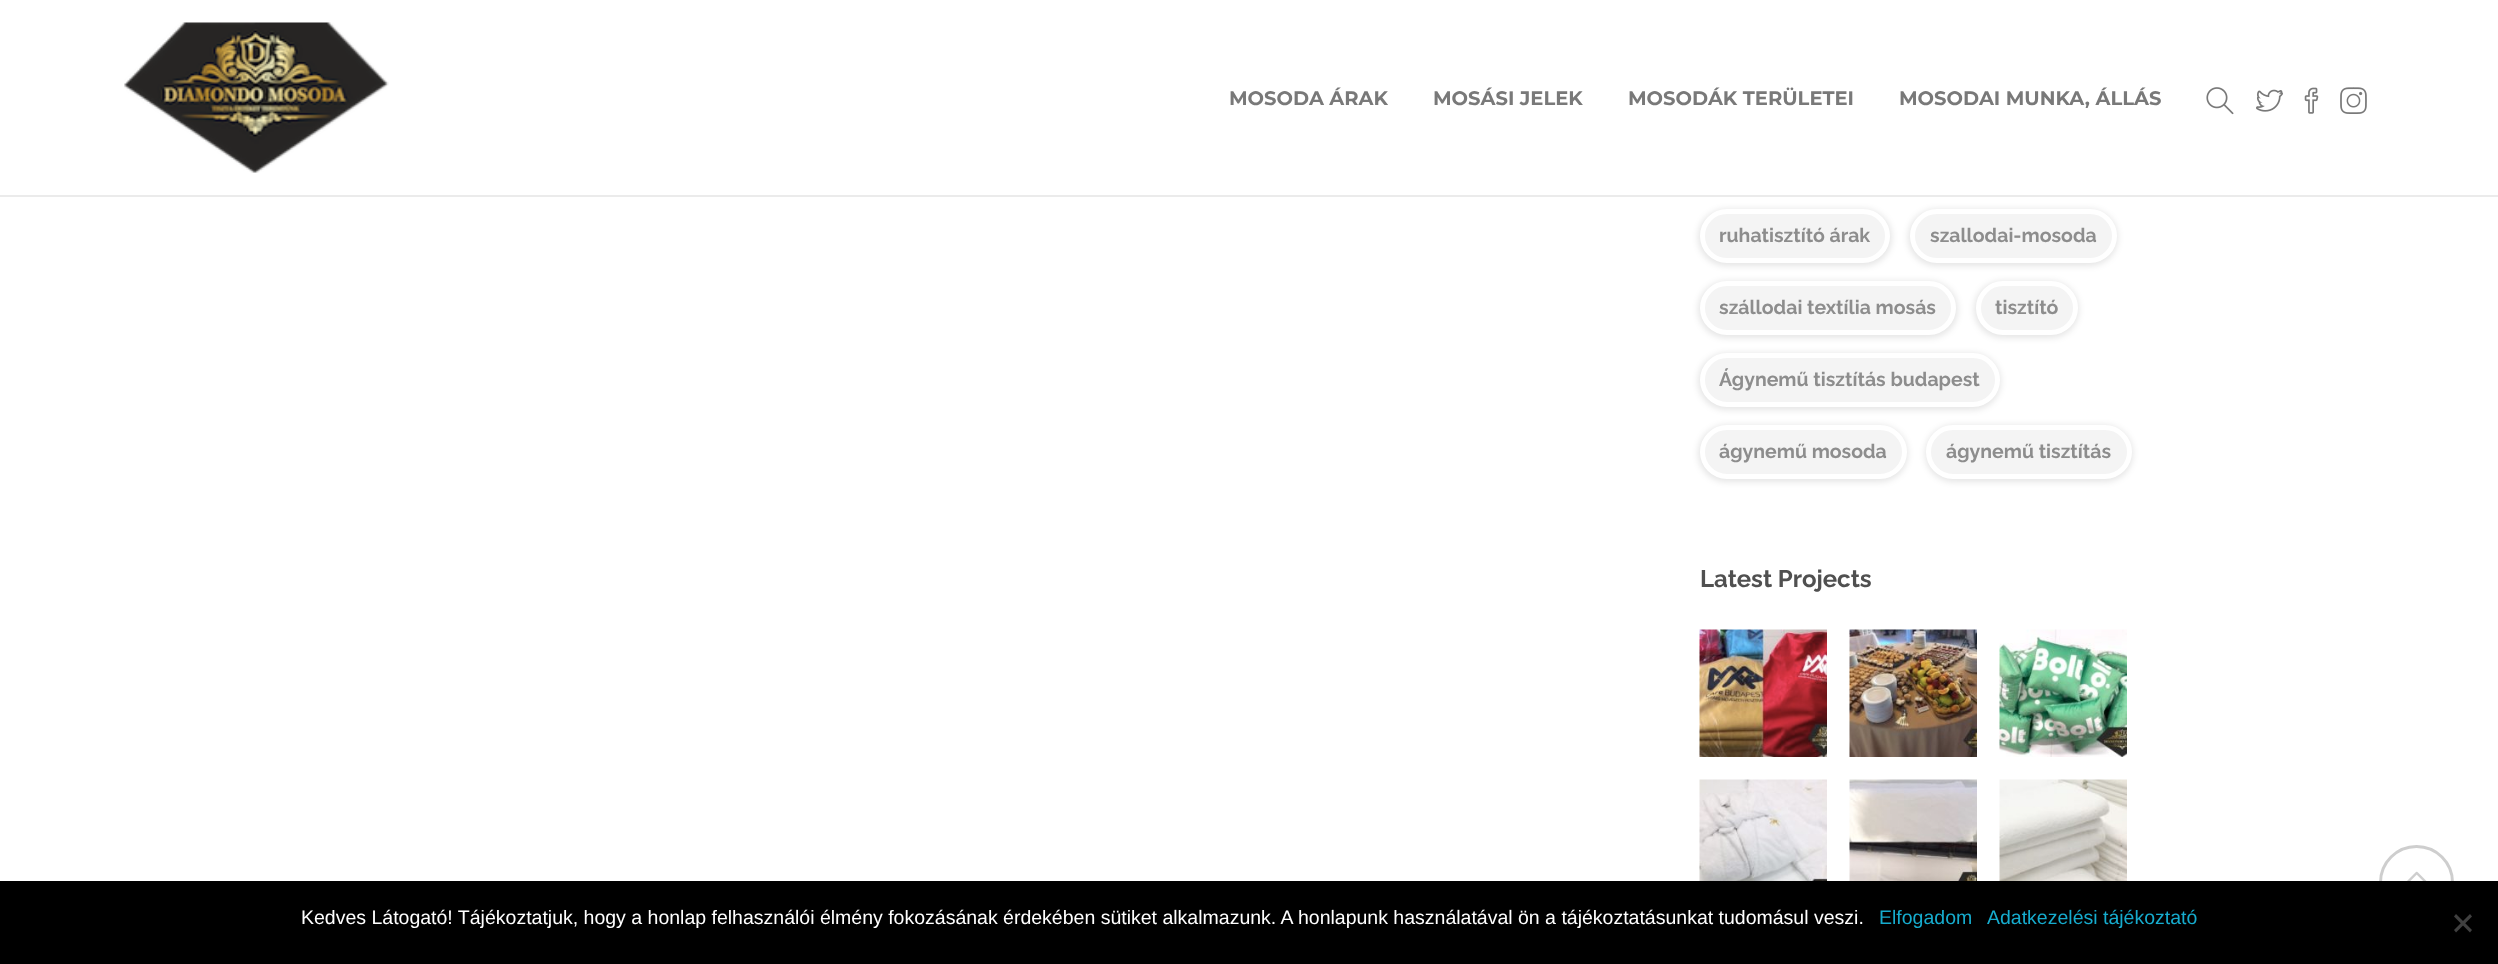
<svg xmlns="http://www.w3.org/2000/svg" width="2498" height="964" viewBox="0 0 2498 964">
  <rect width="100%" height="100%" fill="#fff"/>
  <path d="M0 195h2498v2H0z" fill="#ebebeb"/>
  <image x="124" y="22" width="265" height="151" href="img/1.png"/>
  <image x="2206" y="87" width="28" height="28" href="img/2.png"/>
  <image x="2256" y="89" width="27" height="23" href="img/3.png"/>
  <image x="2304" y="87" width="15" height="27" href="img/4.png"/>
  <image x="2340" y="87" width="27" height="27" href="img/5.png"/>
  <rect x="1698" y="209" width="194" height="57" rx="28.5" fill="#0000001a" filter="blur(3px)"/>
  <rect x="1702.5" y="211.5" width="185" height="49" rx="24.5" fill="#f4f4f4" stroke="#fff" stroke-width="5"/>
  <rect x="1908" y="209" width="210" height="57" rx="28.5" fill="#0000001a" filter="blur(3px)"/>
  <rect x="1912.5" y="211.5" width="202" height="49" rx="24.5" fill="#f4f4f4" stroke="#fff" stroke-width="5"/>
  <rect x="1698" y="281" width="260" height="57" rx="28.5" fill="#0000001a" filter="blur(3px)"/>
  <rect x="1702.5" y="283.5" width="251" height="49" rx="24.5" fill="#f4f4f4" stroke="#fff" stroke-width="5"/>
  <rect x="1974" y="281" width="105" height="57" rx="28.5" fill="#0000001a" filter="blur(3px)"/>
  <rect x="1978.5" y="283.5" width="97" height="49" rx="24.5" fill="#f4f4f4" stroke="#fff" stroke-width="5"/>
  <rect x="1698" y="353" width="303" height="57" rx="28.5" fill="#0000001a" filter="blur(3px)"/>
  <rect x="1702.5" y="355.5" width="295" height="49" rx="24.5" fill="#f4f4f4" stroke="#fff" stroke-width="5"/>
  <rect x="1698" y="425" width="210" height="57" rx="28.5" fill="#0000001a" filter="blur(3px)"/>
  <rect x="1702.5" y="427.5" width="202" height="49" rx="24.5" fill="#f4f4f4" stroke="#fff" stroke-width="5"/>
  <rect x="1925" y="425" width="208" height="57" rx="28.5" fill="#0000001a" filter="blur(3px)"/>
  <rect x="1928.5" y="427.5" width="201" height="49" rx="24.5" fill="#f4f4f4" stroke="#fff" stroke-width="5"/>
  <image x="1699" y="629" width="128" height="128" href="img/6.png"/>
  <image x="1849" y="629" width="128" height="128" href="img/7.png"/>
  <image x="1999" y="629" width="128" height="128" href="img/8.png"/>
  <image x="1699" y="779" width="128" height="102" href="img/9.png"/>
  <image x="1849" y="779" width="128" height="102" href="img/10.png"/>
  <image x="1999" y="779" width="128" height="102" href="img/11.png"/>
  <circle cx="2416.5" cy="882.5" r="36" fill="none" stroke="#cecece" stroke-width="3"/>
  <path d="M0 881h2498v83H0z" fill="#000"/>
  <path d="M2470 914L2472 916.5L2456 932.5L2454 930Z" fill="#404040"/>
  <path d="M2454 916.5L2456 914L2472 930L2470 932.5Z" fill="#404040"/>
  <image x="2407" y="871" width="20" height="10" href="img/12.png"/>
  <g font-family="Montserrat" font-size="19.5" font-weight="bold" fill="#797979">
    <text x="1229" y="105">MOSODA ÁRAK</text>
    <text x="1433" y="105">MOSÁSI JELEK</text>
    <text x="1628" y="105">MOSODÁK TERÜLETEI</text>
    <text x="1899" y="105">MOSODAI MUNKA, ÁLLÁS</text>
  </g>
  <g font-family="Raleway" font-size="19.5" font-weight="bold" fill="#8d8d8d">
    <text x="1719" y="242">ruhatisztító árak</text>
    <text x="1930" y="242">szallodai-mosoda</text>
    <text x="1719" y="314">szállodai textília mosás</text>
    <text x="1995" y="314">tisztító</text>
    <text x="1719" y="386">Ágynemű tisztítás budapest</text>
    <text x="1719" y="458">ágynemű mosoda</text>
    <text x="1946" y="458">ágynemű tisztítás</text>
  </g>
  <text x="1700" y="587" font-family="Raleway" font-size="24" font-weight="bold" fill="#505050">Latest Projects</text>
  <text x="301" y="924" font-family="Liberation Sans" font-size="19.5" fill="#fff">Kedves Látogató! Tájékoztatjuk, hogy a honlap felhasználói élmény fokozásának érdekében sütiket alkalmazunk. A honlapunk használatával ön a tájékoztatásunkat tudomásul veszi.</text>
  <g font-family="Liberation Sans" font-size="19.5" fill="#16acce">
    <text x="1879" y="924">Elfogadom</text>
    <text x="1987" y="924">Adatkezelési tájékoztató</text>
  </g>
</svg>
